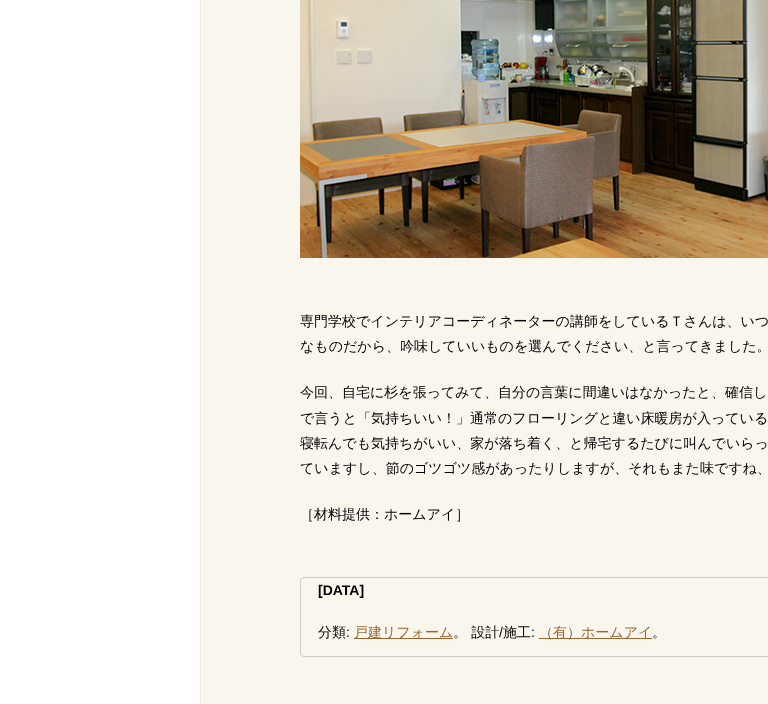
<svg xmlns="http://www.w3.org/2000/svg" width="768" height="704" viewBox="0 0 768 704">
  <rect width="100%" height="100%" fill="#fff"/>
  <image x="200" y="0" width="568" height="704" href="img/1.png"/>
  <image x="300" y="0" width="468" height="258" href="img/2.png"/>
  <rect x="300.5" y="577.5" width="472" height="79" rx="3.5" fill="none" stroke="#ccc"/>
  <path d="M354 638h99v1H354z" fill="#963"/>
  <path d="M539 638h113v1H539z" fill="#963"/>
  <g font-family="WenQuanYi Zen Hei" font-size="14" font-weight="500" fill="#000">
    <text x="300" y="326">専門学校でインテリアコーディネーターの講師をしているＴさんは、いつ</text>
    <text x="300" y="351">なものだから、吟味していいものを選んでください、と言ってきました。</text>
    <text x="300" y="397">今回、自宅に杉を張ってみて、自分の言葉に間違いはなかったと、確信し</text>
    <text x="300" y="423">で言うと「気持ちいい！」通常のフローリングと違い床暖房が入っている</text>
    <text x="300" y="448">寝転んでも気持ちがいい、家が落ち着く、と帰宅するたびに叫んでいらっ</text>
    <text x="300" y="473">ていますし、節のゴツゴツ感があったりしますが、それもまた味ですね、</text>
    <text x="300" y="519">［材料提供：ホームアイ］</text>
  </g>
  <text x="318" y="595" font-family="Liberation Sans" font-size="14" font-weight="bold" fill="#000">[DATA]</text>
  <text x="318" y="637" font-family="WenQuanYi Zen Hei" font-size="14" font-weight="500" fill="#000">分類</text>
  <text x="346" y="637" font-family="Liberation Sans" font-size="14" fill="#000">:</text>
  <text x="354" y="637" font-family="WenQuanYi Zen Hei" font-size="14" font-weight="500" fill="#963">戸建リフォーム</text>
  <text x="453" y="637" font-family="WenQuanYi Zen Hei" font-size="14" font-weight="500" fill="#000">。 設計</text>
  <text x="499" y="637" font-family="Liberation Sans" font-size="14" fill="#000">/</text>
  <text x="503" y="637" font-family="WenQuanYi Zen Hei" font-size="14" font-weight="500" fill="#000">施工</text>
  <text x="531" y="637" font-family="Liberation Sans" font-size="14" fill="#000">:</text>
  <text x="539" y="637" font-family="WenQuanYi Zen Hei" font-size="14" font-weight="500" fill="#963">（有）ホームアイ</text>
  <text x="652" y="637" font-family="WenQuanYi Zen Hei" font-size="14" font-weight="500" fill="#000">。</text>
</svg>
